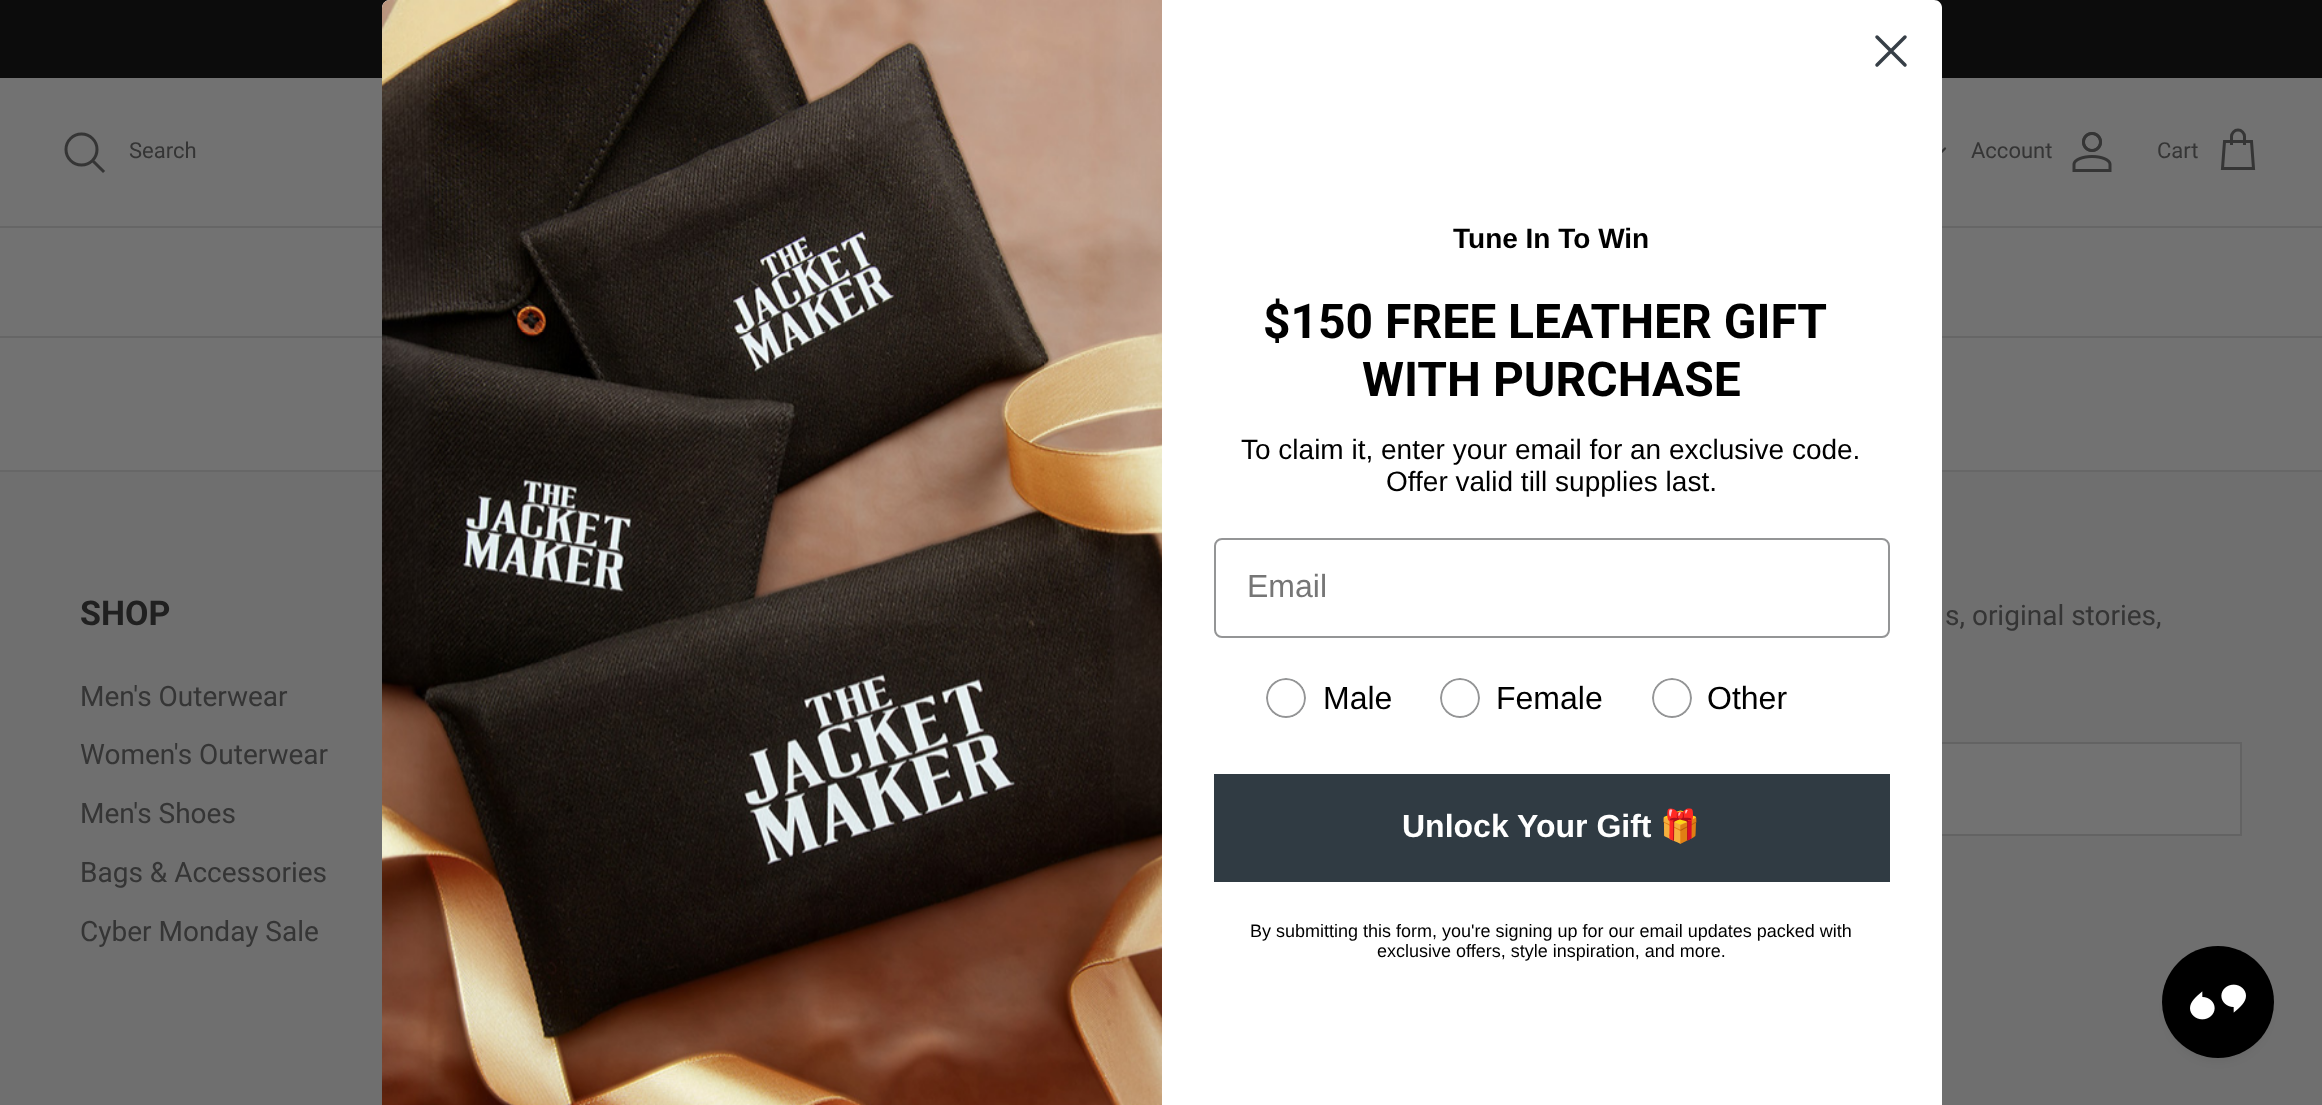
<svg xmlns="http://www.w3.org/2000/svg" width="2322" height="1105" viewBox="0 0 2322 1105">
  <defs>
    <clipPath id="clip1"><rect x="1266" y="678" width="40" height="40" rx="20"/></clipPath>
    <clipPath id="clip2"><rect x="1440" y="678" width="40" height="40" rx="20"/></clipPath>
    <clipPath id="clip3"><rect x="1652" y="678" width="40" height="40" rx="20"/></clipPath>
  </defs>
  <rect width="100%" height="100%" fill="#727272"/>
  <path d="M0 0h2322v78H0z" fill="#0c0c0c"/>
  <path d="M0 226h2322v2H0z" fill="#666"/>
  <circle cx="81.5" cy="149.5" r="15.5" fill="none" stroke="#353535" stroke-width="3"/>
  <path d="M94 162L103 171" fill="none" stroke="#353535" stroke-width="3" stroke-linecap="square"/>
  <path d="M1931 148.5L1938 155.5L1945 148.5" fill="none" stroke="#353535" stroke-width="2.3" stroke-linecap="round" stroke-linejoin="round"/>
  <image x="2072" y="132" width="40" height="40" href="img/1.png"/>
  <path d="M2244.5 145V136.5C2244.5 133 2241.5 130 2238 130C2234.5 130 2231.5 133 2231.5 136.5V145M2224.5 141.5H2251.5L2253.5 168.5H2222.5Z" fill="none" stroke="#353535" stroke-width="3"/>
  <path d="M0 336h2322v2H0z" fill="#666"/>
  <path d="M0 472h2322v633H0z" fill="#6f6f6f"/>
  <path d="M0 470h2322v2H0z" fill="#676767"/>
  <path d="M1942 744h298v90H1942z" fill="#727272"/>
  <path d="M1623 743h618v92H1623z" fill="none" stroke="#636363" stroke-width="2"/>
  <path d="M390 0H1934C1938.5 0 1942 3.5 1942 8V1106H382V8C382 3.5 385.5 0 390 0Z" fill="#fff"/>
  <path d="M1877 37L1905 65M1877 65L1905 37Z" fill="none" stroke="#373f47" stroke-width="3.5" stroke-linecap="round" stroke-linejoin="round"/>
  <image x="382" y="0" width="780" height="1105" href="img/2.png"/>
  <rect x="1215" y="539" width="674" height="98" rx="7" fill="none" stroke="#949596" stroke-width="2"/>
  <g clip-path="url(#clip1)">
    <circle cx="1286" cy="698" r="19" fill="none" stroke="#949596" stroke-width="2"/>
  </g>
  <g clip-path="url(#clip2)">
    <circle cx="1460" cy="698" r="19" fill="none" stroke="#949596" stroke-width="2"/>
  </g>
  <g clip-path="url(#clip3)">
    <circle cx="1672" cy="698" r="19" fill="none" stroke="#949596" stroke-width="2"/>
  </g>
  <path d="M1214 774h676v108H1214z" fill="#303b43"/>
  <rect x="2170" y="962" width="96" height="96" rx="48" fill="#0000001a" filter="blur(6px)"/>
  <circle cx="2218" cy="1002" r="56" fill="#000"/>
  <image x="2190" y="984" width="56" height="36" href="img/3.png"/>
  <g font-family="Roboto" font-size="22" fill="#353535">
    <text x="129" y="158">Search</text>
    <text x="1971" y="158">Account</text>
    <text x="2157" y="158">Cart</text>
  </g>
  <text x="1453" y="248" font-family="Liberation Sans" font-size="28" font-weight="bold" fill="#000">Tune In To Win</text>
  <g font-family="Roboto" font-size="48" font-weight="bold" fill="#000">
    <text x="1263" y="338">$150 FREE LEATHER GIFT</text>
    <text x="1362" y="396">WITH PURCHASE</text>
  </g>
  <g font-family="Liberation Sans" font-size="28" fill="#000">
    <text x="1241" y="459">To claim it, enter your email for an exclusive code.</text>
    <text x="1386" y="491">Offer valid till supplies last.</text>
  </g>
  <text x="1247" y="597" font-family="Liberation Sans" font-size="32" fill="#767676">Email</text>
  <g font-family="Liberation Sans" font-size="32" fill="#000">
    <text x="1323" y="709">Male</text>
    <text x="1496" y="709">Female</text>
    <text x="1707" y="709">Other</text>
  </g>
  <text x="1402" y="837" font-family="Liberation Sans" font-size="32" font-weight="bold" fill="#fff">Unlock Your Gift</text>
  <text x="1660" y="837" font-family="Noto Color Emoji" font-size="32" font-weight="bold" fill="#fff">🎁</text>
  <g font-family="Liberation Sans" font-size="18" fill="#000">
    <text x="1250" y="937">By submitting this form, you're signing up for our email updates packed with</text>
    <text x="1377" y="957">exclusive offers, style inspiration, and more.</text>
  </g>
  <text x="80" y="625" font-family="Roboto" font-size="34" font-weight="bold" fill="#202020">SHOP</text>
  <g font-family="Roboto" font-size="28" fill="#353535">
    <text x="80" y="706">Men's Outerwear</text>
    <text x="80" y="764">Women's Outerwear</text>
    <text x="80" y="823">Men's Shoes</text>
    <text x="80" y="882">Bags &amp; Accessories</text>
    <text x="80" y="941">Cyber Monday Sale</text>
    <text x="1945" y="625">s, original stories,</text>
  </g>
</svg>
